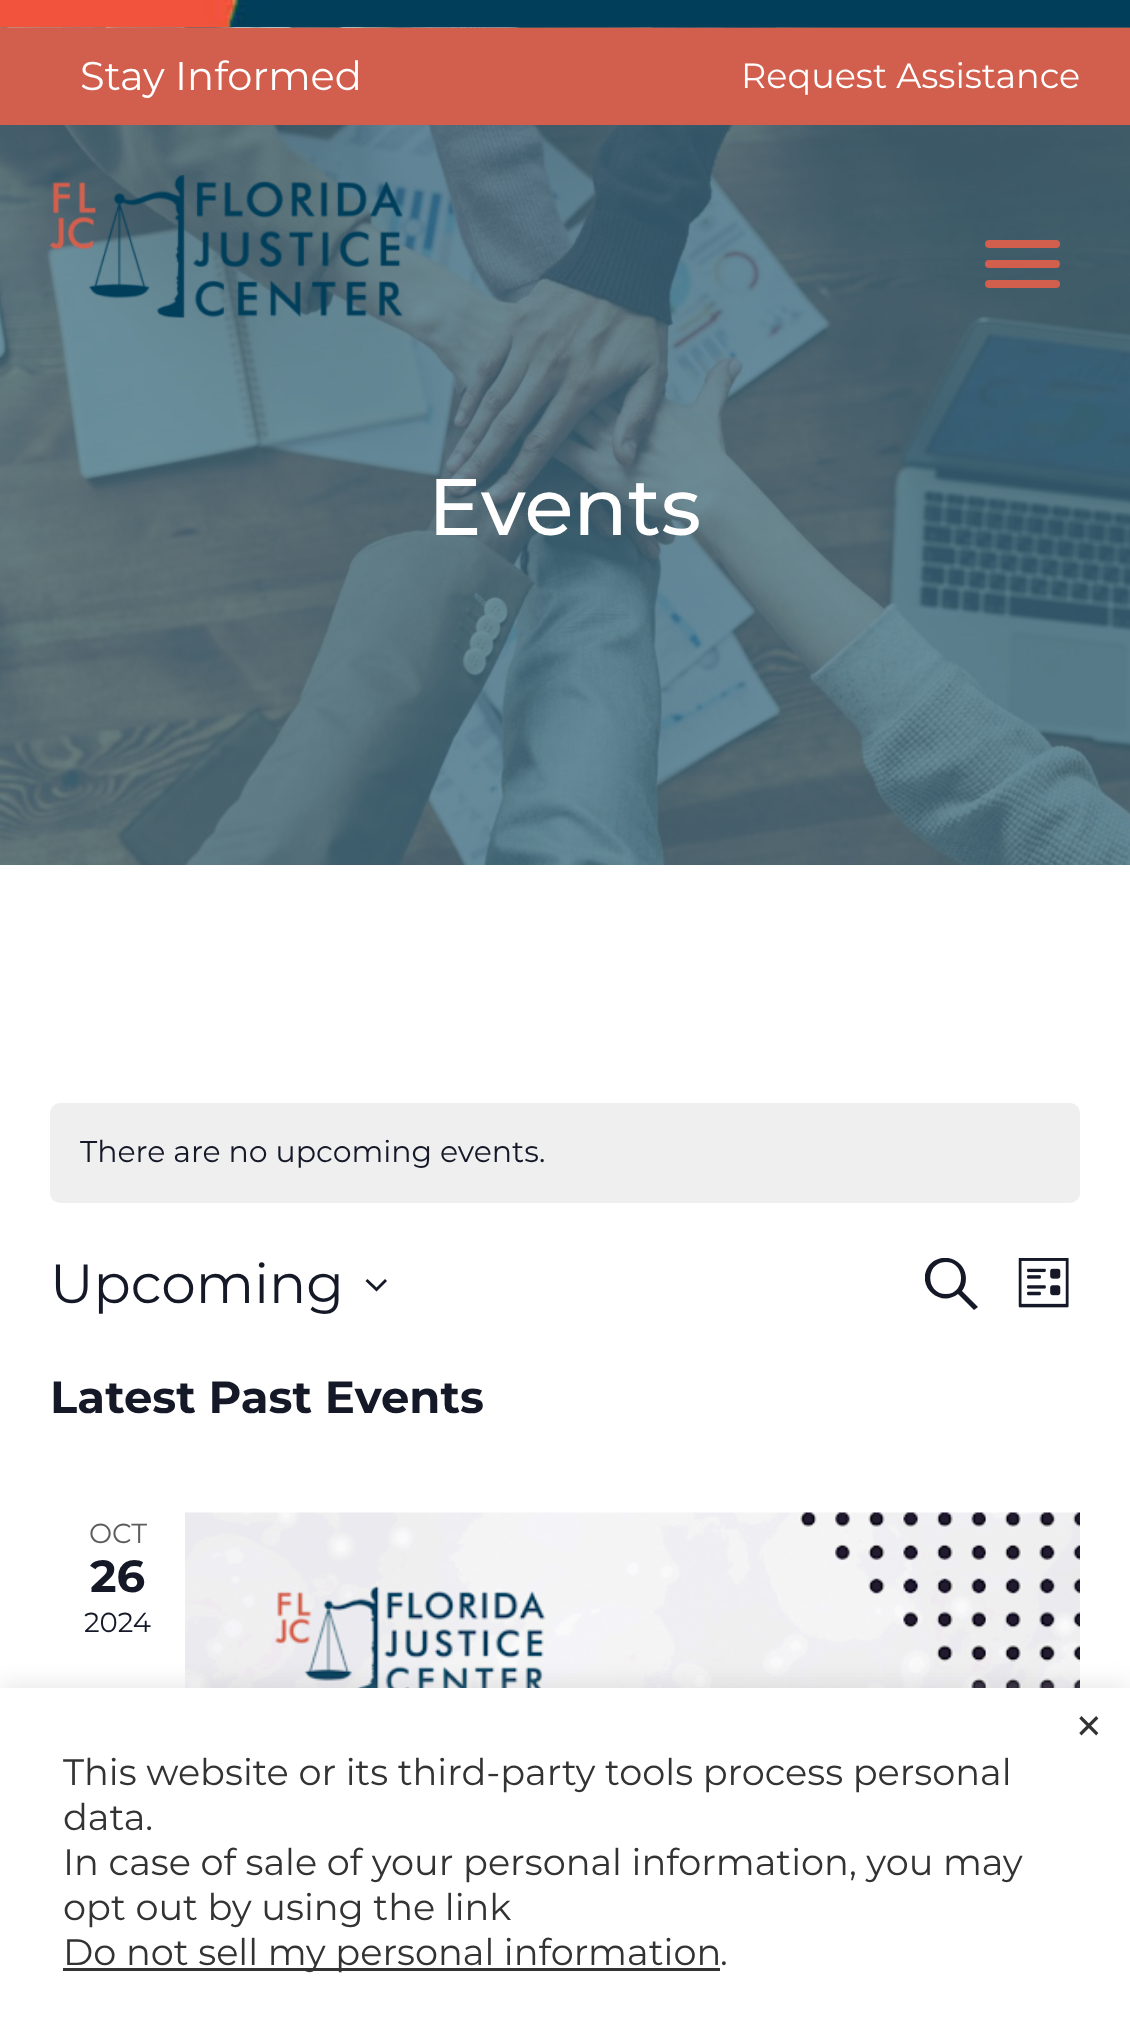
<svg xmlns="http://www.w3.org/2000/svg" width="1130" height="2037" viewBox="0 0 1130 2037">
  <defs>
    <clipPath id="clip1"><path d="M925 1258h53v52H925z"/></clipPath>
  </defs>
  <rect width="100%" height="100%" fill="#fff"/>
  <image x="0" y="0" width="1130" height="28" href="img/1.png"/>
  <image x="0" y="27" width="1130" height="838" href="img/3.png"/>
  <path d="M0 28h1130v97H0z" fill="#d25e4d"/>
  <image x="50" y="175" width="353" height="143" href="img/2.png"/>
  <rect x="985" y="260" width="75" height="8" rx="4" fill="#d25e4d"/>
  <rect x="985" y="240" width="75" height="8" rx="4" fill="#d25e4d"/>
  <rect x="985" y="280" width="75" height="8" rx="4" fill="#d25e4d"/>
  <rect x="50" y="1103" width="1030" height="100" rx="10" fill="#efeff0"/>
  <path d="M367.5 1279L376.5 1287.5L385 1279L387 1281L376.5 1291.5L365.5 1281Z" fill="#141827" fill-rule="evenodd"/>
  <g clip-path="url(#clip1)">
    <path d="M962 1291L978 1307L974 1310L958 1294C940 1308 916 1286 928 1267C931 1262 936 1259 942 1258C948 1257 955 1259 960 1264C967 1271 968 1283 962 1291ZM946 1262C925 1262 925 1294 946 1294C966 1294 966 1262 946 1262Z" fill="#141827" fill-rule="evenodd"/>
  </g>
  <image x="1018" y="1258" width="51" height="50" href="img/4.png"/>
  <image x="185" y="1512" width="895" height="176" href="img/5.png"/>
  <path d="M0 1685h1130v350H0z" fill="#acabab4d" filter="blur(12.5px)"/>
  <path d="M0 1688h1130v349H0z" fill="#fff"/>
  <path d="M63 1968h657v3H63z" fill="#333"/>
  <text x="80" y="90" font-family="Montserrat" font-size="40" fill="#fff">Stay Informed</text>
  <text x="741" y="88" font-family="Montserrat" font-size="35" fill="#fff">Request Assistance</text>
  <text x="428" y="535" font-family="Montserrat" font-size="80" font-weight="500" fill="#fff">Events</text>
  <text x="80" y="1162" font-family="Montserrat" font-size="30" fill="#141827">There are no upcoming events.</text>
  <text x="50" y="1303" font-family="Montserrat" font-size="55" fill="#141827">Upcoming</text>
  <text x="50" y="1413" font-family="Montserrat" font-size="45" font-weight="bold" fill="#141827">Latest Past Events</text>
  <text x="89" y="1543" font-family="Montserrat" font-size="27.5" fill="#5d5d5d">OCT</text>
  <text x="90" y="1592" font-family="Montserrat" font-size="45" font-weight="bold" fill="#141827">26</text>
  <text x="84" y="1632" font-family="Montserrat" font-size="27.5" fill="#141827">2024</text>
  <text x="1073" y="1745" font-family="Montserrat" font-size="55" fill="#333">×</text>
  <g font-family="Montserrat" font-size="36.7" fill="#333">
    <text x="63" y="1785">This website or its third-party tools process personal</text>
    <text x="63" y="1830">data.</text>
    <text x="63" y="1875">In case of sale of your personal information, you may</text>
    <text x="63" y="1920">opt out by using the link</text>
    <text x="63" y="1965">Do not sell my personal information</text>
    <text x="720" y="1965">.</text>
  </g>
</svg>
